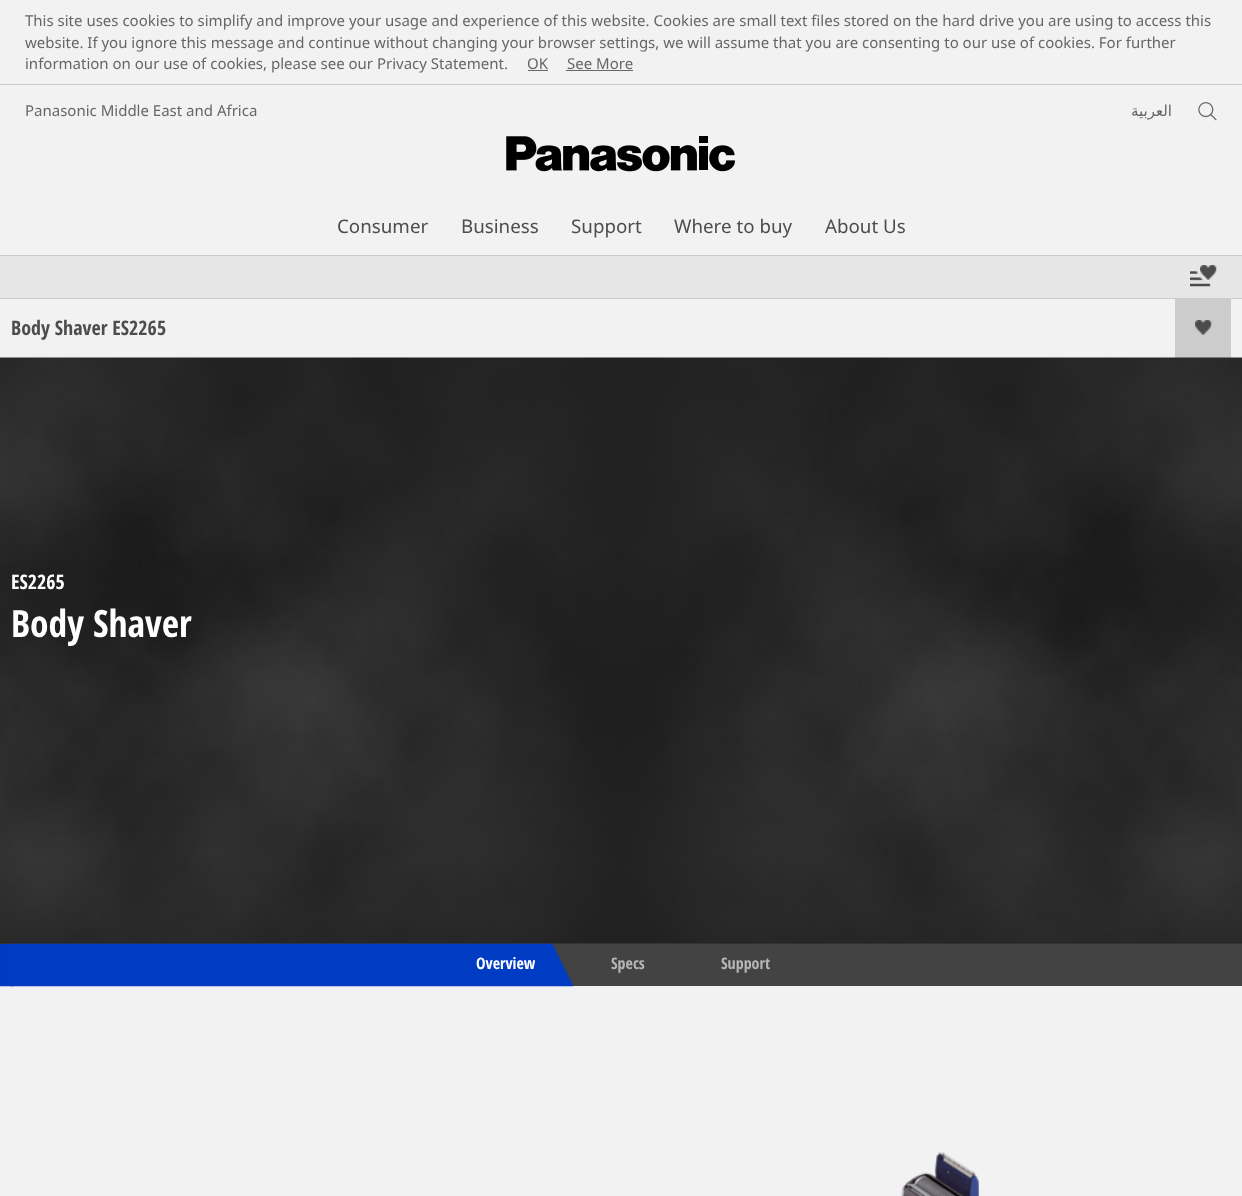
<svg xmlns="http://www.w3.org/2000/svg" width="1242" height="1196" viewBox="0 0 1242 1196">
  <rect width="100%" height="100%" fill="#f2f2f2"/>
  <path d="M0 84h1242v1H0z" fill="#ccc"/>
  <path d="M528 70h20v1H528z" fill="#666"/>
  <path d="M566 70h67v1H566z" fill="#666"/>
  <image x="1198" y="102" width="19" height="19" href="img/1.png"/>
  <image x="506" y="136" width="229" height="36" href="img/2.png"/>
  <path d="M0 256h1242v42H0z" fill="#e6e6e6"/>
  <path d="M0 255h1242v1H0z" fill="#ccc"/>
  <image x="1190" y="271" width="21" height="16" href="img/4.png"/>
  <image x="1200" y="265" width="17" height="15" href="img/3.png"/>
  <path d="M0 298h1242v1H0z" fill="#ccc"/>
  <path d="M1175 299h56v59H1175z" fill="#ccc"/>
  <image x="1195" y="320" width="17" height="15" href="img/5.png"/>
  <path d="M0 942h1242v1H0z" fill="#222"/>
  <image x="0" y="357" width="1242" height="586" href="img/6.png"/>
  <path d="M551 944h691v42H551z" fill="#434343"/>
  <image x="0" y="944" width="14" height="43" href="img/7.png"/>
  <path d="M0 943h1242v1H0z" fill="#333"/>
  <image x="11" y="943" width="563" height="44" href="img/8.png"/>
  <image x="900" y="1152" width="79" height="44" href="img/9.png"/>
  <g font-family="Noto Sans" font-size="15" fill="#666">
    <text x="25" y="26">This site uses cookies to simplify and improve your usage and experience of this website. Cookies are small text files stored on the hard drive you are using to access this</text>
    <text x="25" y="48">website. If you ignore this message and continue without changing your browser settings, we will assume that you are consenting to our use of cookies. For further</text>
    <text x="25" y="69">information on our use of cookies, please see our Privacy Statement.</text>
    <text x="527" y="69">OK</text>
    <text x="567" y="69">See More</text>
    <text x="25" y="116">Panasonic Middle East and Africa</text>
  </g>
  <text x="1172" y="116" font-family="DejaVu Sans" font-size="15" direction="rtl" fill="#666">العربية</text>
  <g font-family="Noto Sans" font-size="18.75" fill="#4d4d4d">
    <text x="337" y="233">Consumer</text>
    <text x="461" y="233">Business</text>
    <text x="571" y="233">Support</text>
    <text x="674" y="233">Where to buy</text>
    <text x="825" y="233">About Us</text>
  </g>
  <text x="11" y="335" font-family="Open Sans Condensed" font-size="20" font-weight="bold" fill="#4d4d4d">Body Shaver ES2265</text>
  <text x="11" y="589" font-family="Open Sans Condensed" font-size="20" font-weight="bold" fill="#fff">ES2265</text>
  <text x="11" y="637" font-family="Open Sans Condensed" font-size="37.5" font-weight="bold" fill="#fff">Body Shaver</text>
  <text x="476" y="969" font-family="Open Sans Condensed" font-size="16" font-weight="bold" fill="#fff">Overview</text>
  <g font-family="Open Sans Condensed" font-size="16" font-weight="bold" fill="#b6b6b6">
    <text x="611" y="969">Specs</text>
    <text x="721" y="969">Support</text>
  </g>
</svg>
